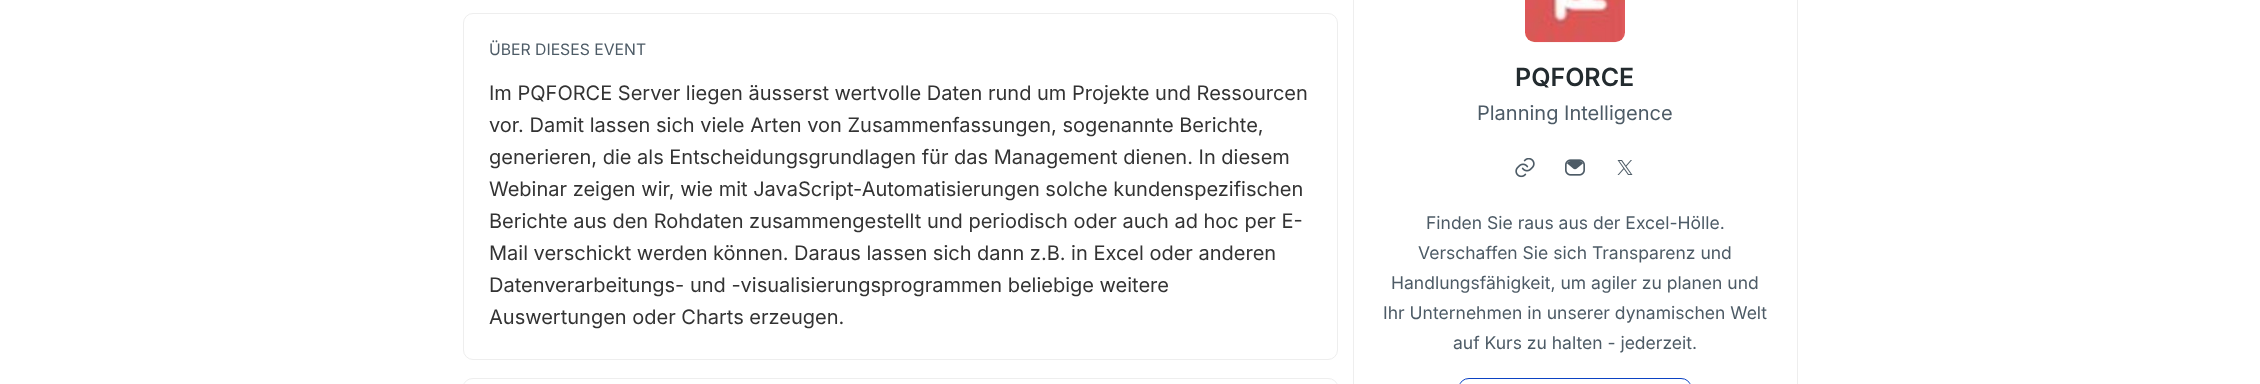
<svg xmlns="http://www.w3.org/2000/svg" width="2260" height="384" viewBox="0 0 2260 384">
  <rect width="100%" height="100%" fill="#fff"/>
  <rect x="463.5" y="13.5" width="874" height="346" rx="9.5" fill="none" stroke="#eee"/>
  <rect x="463.5" y="378.5" width="874" height="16" rx="9.5" fill="none" stroke="#eee"/>
  <path d="M1353.5 -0.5h444v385H1353.5z" fill="none" stroke="#eee"/>
  <image x="1525" y="0" width="100" height="43" href="img/1.png"/>
  <image x="1515" y="158" width="20" height="20" href="img/2.png"/>
  <image x="1565" y="159" width="20" height="17" href="img/3.png"/>
  <image x="1617" y="160" width="16" height="15" href="img/4.png"/>
  <rect x="1459.5" y="378.5" width="231" height="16" rx="9.5" fill="none" stroke="#0b42c3"/>
  <text x="489" y="55" font-family="Inter" font-size="15.75" fill="#4d5b66">ÜBER DIESES EVENT</text>
  <g font-family="Inter" font-size="20" fill="#333">
    <text x="489" y="100">Im PQFORCE Server liegen äusserst wertvolle Daten rund um Projekte und Ressourcen</text>
    <text x="489" y="132">vor. Damit lassen sich viele Arten von Zusammenfassungen, sogenannte Berichte,</text>
    <text x="489" y="164">generieren, die als Entscheidungsgrundlagen für das Management dienen. In diesem</text>
    <text x="489" y="196">Webinar zeigen wir, wie mit JavaScript-Automatisierungen solche kundenspezifischen</text>
    <text x="489" y="228">Berichte aus den Rohdaten zusammengestellt und periodisch oder auch ad hoc per E-</text>
    <text x="489" y="260">Mail verschickt werden können. Daraus lassen sich dann z.B. in Excel oder anderen</text>
    <text x="489" y="292">Datenverarbeitungs- und -visualisierungsprogrammen beliebige weitere</text>
    <text x="489" y="324">Auswertungen oder Charts erzeugen.</text>
  </g>
  <text x="1515" y="86" font-family="Inter" font-size="25" font-weight="600" fill="#232b2f">PQFORCE</text>
  <text x="1477" y="120" font-family="Inter" font-size="20" fill="#4d5b66">Planning Intelligence</text>
  <g font-family="Inter" font-size="17.5" fill="#4d5b66">
    <text x="1426" y="229">Finden Sie raus aus der Excel-Hölle.</text>
    <text x="1418" y="259">Verschaffen Sie sich Transparenz und</text>
    <text x="1391" y="289">Handlungsfähigkeit, um agiler zu planen und</text>
    <text x="1383" y="319">Ihr Unternehmen in unserer dynamischen Welt</text>
    <text x="1453" y="349">auf Kurs zu halten - jederzeit.</text>
  </g>
</svg>
